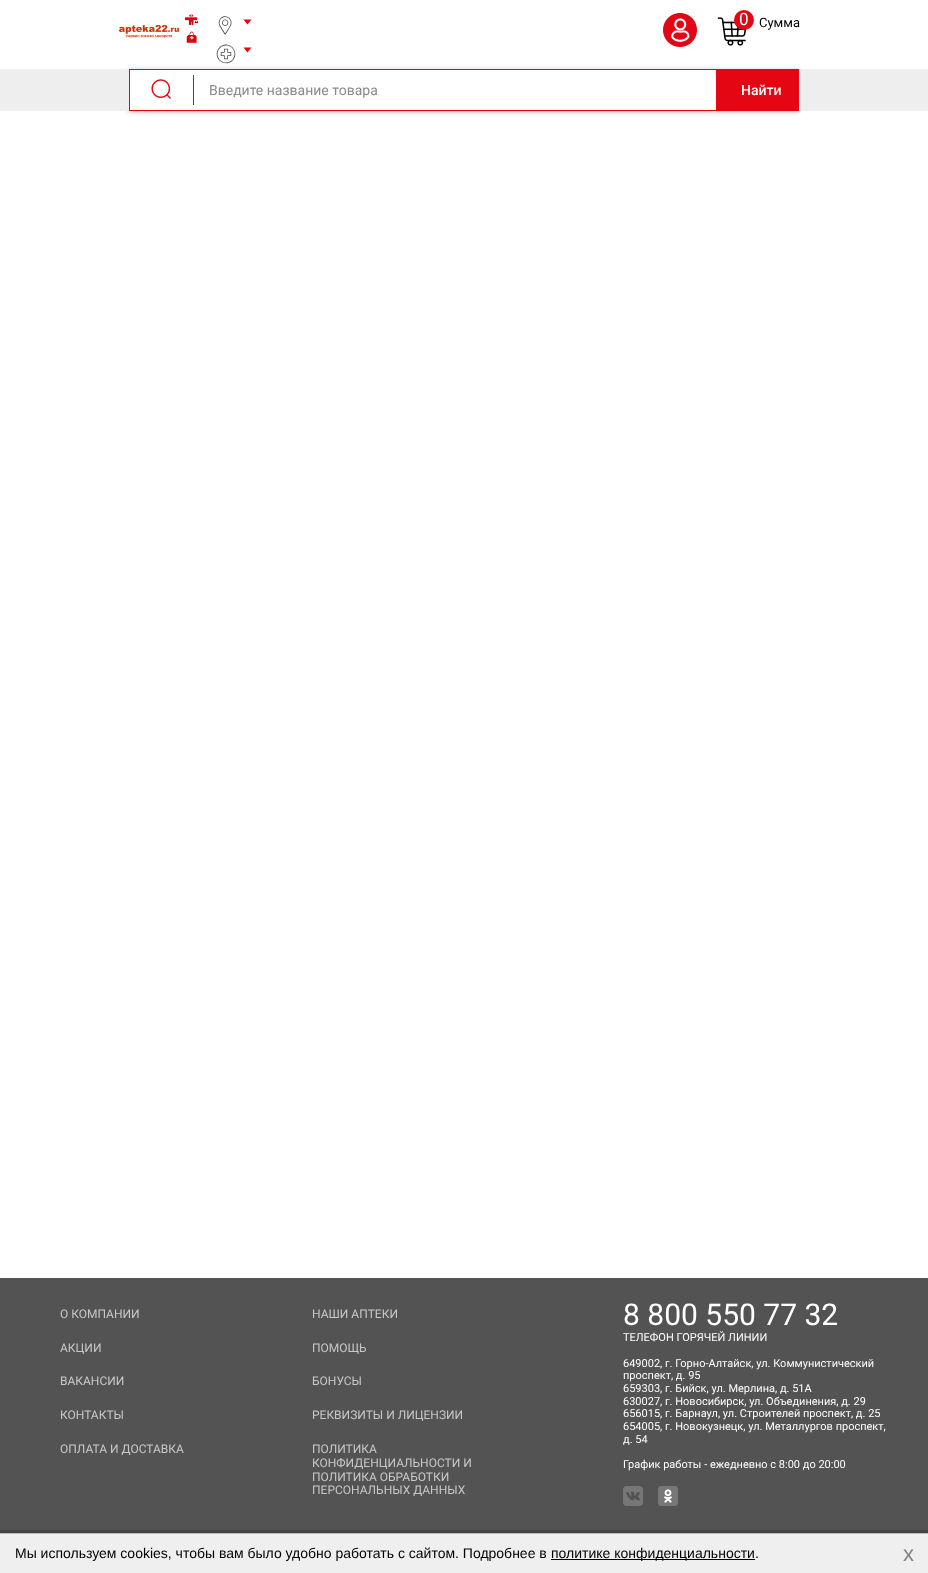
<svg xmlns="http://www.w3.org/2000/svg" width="928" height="1573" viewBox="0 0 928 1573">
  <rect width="100%" height="100%" fill="#fff"/>
  <image x="184" y="14" width="15" height="12" href="img/1.png"/>
  <image x="119" y="25" width="60" height="13" href="img/2.png"/>
  <image x="186" y="31" width="11" height="12" href="img/3.png"/>
  <image x="218" y="16" width="14" height="19" href="img/4.png"/>
  <path d="M243.5 19.5L247.5 24.5L251.5 19.5Z" fill="#e40613"/>
  <image x="216" y="44" width="20" height="20" href="img/5.png"/>
  <path d="M243.5 47.5L247.5 52.5L251.5 47.5Z" fill="#e40613"/>
  <image x="663" y="13" width="34" height="34" href="img/6.png"/>
  <image x="717" y="17" width="30" height="29" href="img/7.png"/>
  <circle cx="744" cy="20" r="10" fill="#e40613"/>
  <path d="M128 70h670v42H128z" fill="#7a7a7a80" filter="blur(2.5px)"/>
  <path d="M0 69h928v42H0z" fill="#eee"/>
  <path d="M130 70h586v40H130z" fill="#fff"/>
  <path d="M129 69h670v1H129z" fill="#e40613"/>
  <path d="M129 110h670v1H129z" fill="#e40613"/>
  <path d="M129 69h1v42H129z" fill="#e40613"/>
  <path d="M193 75h1v30H193z" fill="#e40613"/>
  <image x="151" y="79" width="20" height="20" href="img/8.png"/>
  <path d="M716 70h83v40H716z" fill="#e40613"/>
  <path d="M0 1278h928v252H0z" fill="#535353"/>
  <image x="623" y="1486" width="20" height="20" href="img/9.png"/>
  <image x="658" y="1486" width="20" height="20" href="img/10.png"/>
  <path d="M0 1530h928v3H0z" fill="#434343"/>
  <path d="M0 1534h928v39H0z" fill="#efefef"/>
  <path d="M0 1533h928v1H0z" fill="#b9b9b9"/>
  <path d="M551 1559h204v1H551z" fill="#000"/>
  <text x="739" y="25" font-family="Roboto" font-size="17" fill="#fff">0</text>
  <text x="759" y="27" font-family="Roboto" font-size="13" fill="#000">Сумма</text>
  <text x="209" y="95" font-family="Roboto" font-size="14" fill="#8b8a8a">Введите название товара</text>
  <text x="741" y="95" font-family="Roboto" font-size="14" font-weight="500" fill="#fff">Найти</text>
  <g font-family="Roboto" font-size="12" fill="#c8c8c8">
    <text x="60" y="1318">О КОМПАНИИ</text>
    <text x="312" y="1318">НАШИ АПТЕКИ</text>
    <text x="60" y="1352">АКЦИИ</text>
    <text x="312" y="1352">ПОМОЩЬ</text>
    <text x="60" y="1385">ВАКАНСИИ</text>
    <text x="312" y="1385">БОНУСЫ</text>
    <text x="60" y="1419">КОНТАКТЫ</text>
    <text x="312" y="1419">РЕКВИЗИТЫ И ЛИЦЕНЗИИ</text>
    <text x="60" y="1453">ОПЛАТА И ДОСТАВКА</text>
    <text x="312" y="1453">ПОЛИТИКА</text>
    <text x="312" y="1467">КОНФИДЕНЦИАЛЬНОСТИ И</text>
    <text x="312" y="1481">ПОЛИТИКА ОБРАБОТКИ</text>
    <text x="312" y="1494">ПЕРСОНАЛЬНЫХ ДАННЫХ</text>
  </g>
  <text x="623" y="1325" font-family="Roboto" font-size="30" fill="#fff">8 800 550 77 32</text>
  <g font-family="Roboto" font-size="11" fill="#fff">
    <text x="623" y="1341">ТЕЛЕФОН ГОРЯЧЕЙ ЛИНИИ</text>
    <text x="623" y="1367">649002, г. Горно-Алтайск, ул. Коммунистический</text>
    <text x="623" y="1379">проспект, д. 95</text>
    <text x="623" y="1392">659303, г. Бийск, ул. Мерлина, д. 51А</text>
    <text x="623" y="1405">630027, г. Новосибирск, ул. Объединения, д. 29</text>
    <text x="623" y="1417">656015, г. Барнаул, ул. Строителей проспект, д. 25</text>
    <text x="623" y="1430">654005, г. Новокузнецк, ул. Металлургов проспект,</text>
    <text x="623" y="1443">д. 54</text>
    <text x="623" y="1468">График работы - ежедневно с 8:00 до 20:00</text>
  </g>
  <g font-family="Liberation Sans" font-size="14" fill="#000">
    <text x="15" y="1558">Мы используем cookies, чтобы вам было удобно работать с сайтом. Подробнее в</text>
    <text x="551" y="1558">политике конфиденциальности.</text>
  </g>
  <text x="903" y="1561" font-family="Liberation Sans" font-size="22" fill="#867f7f">x</text>
</svg>
